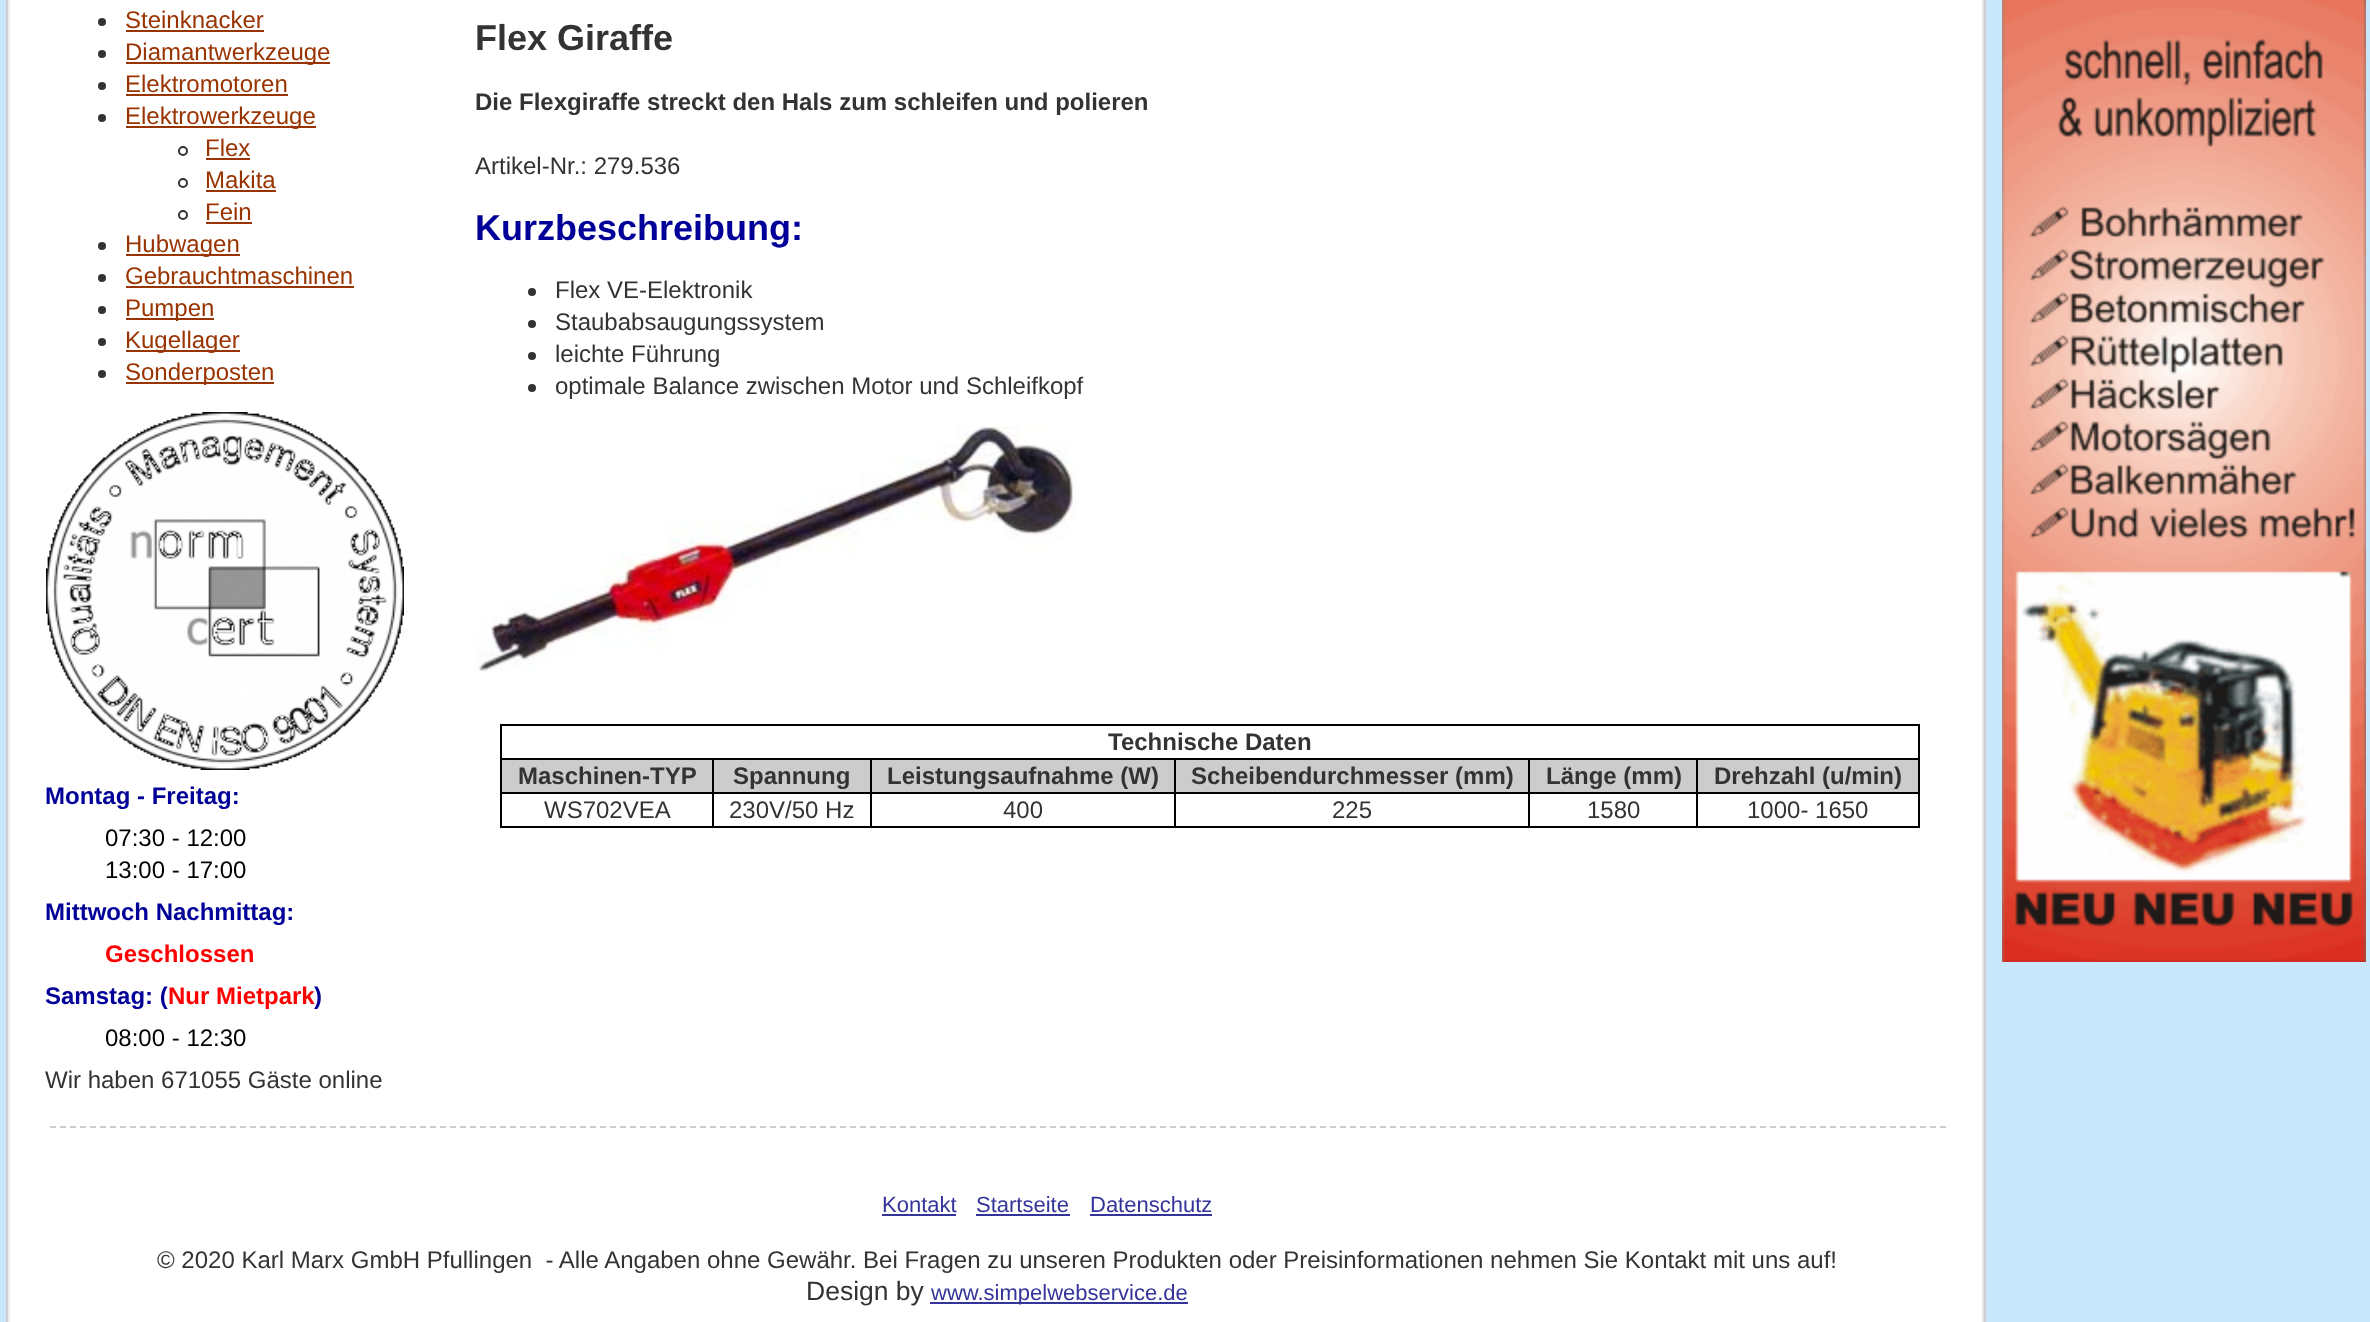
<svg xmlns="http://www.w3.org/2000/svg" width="2370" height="1322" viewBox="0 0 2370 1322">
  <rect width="100%" height="100%" fill="#c9e7fa"/>
  <image x="6" y="0" width="1980" height="1322" href="img/1.png"/>
  <circle cx="102" cy="22" r="4" fill="#333"/>
  <path d="M126 30h138v2H126z" fill="#930"/>
  <circle cx="102" cy="54" r="4" fill="#333"/>
  <path d="M126 62h204v2H126z" fill="#930"/>
  <circle cx="102" cy="86" r="4" fill="#333"/>
  <path d="M126 94h162v2H126z" fill="#930"/>
  <circle cx="102" cy="118" r="4" fill="#333"/>
  <path d="M126 126h190v2H126z" fill="#930"/>
  <circle cx="183" cy="151" r="4" fill="none" stroke="#333" stroke-width="2"/>
  <path d="M206 158h44v2H206z" fill="#930"/>
  <circle cx="183" cy="183" r="4" fill="none" stroke="#333" stroke-width="2"/>
  <path d="M206 190h70v2H206z" fill="#930"/>
  <circle cx="183" cy="215" r="4" fill="none" stroke="#333" stroke-width="2"/>
  <path d="M206 222h46v2H206z" fill="#930"/>
  <circle cx="102" cy="246" r="4" fill="#333"/>
  <path d="M126 254h114v2H126z" fill="#930"/>
  <circle cx="102" cy="278" r="4" fill="#333"/>
  <path d="M126 286h228v2H126z" fill="#930"/>
  <circle cx="102" cy="310" r="4" fill="#333"/>
  <path d="M126 318h88v2H126z" fill="#930"/>
  <circle cx="102" cy="342" r="4" fill="#333"/>
  <path d="M126 350h114v2H126z" fill="#930"/>
  <circle cx="102" cy="374" r="4" fill="#333"/>
  <path d="M126 382h148v2H126z" fill="#930"/>
  <image x="46" y="412" width="358" height="358" href="img/2.png"/>
  <circle cx="532" cy="292" r="4" fill="#333"/>
  <circle cx="532" cy="324" r="4" fill="#333"/>
  <circle cx="532" cy="356" r="4" fill="#333"/>
  <circle cx="532" cy="388" r="4" fill="#333"/>
  <image x="476" y="426" width="600" height="246" href="img/3.png"/>
  <path d="M500 724h1420v2H500z" fill="#000"/>
  <path d="M1918 724h2v104H1918z" fill="#000"/>
  <path d="M500 826h1420v2H500z" fill="#000"/>
  <path d="M500 724h2v104H500z" fill="#000"/>
  <path d="M502 760h1416v32H502z" fill="#ccc"/>
  <path d="M1696 758h224v2H1696z" fill="#000"/>
  <path d="M1696 792h224v2H1696z" fill="#000"/>
  <path d="M1696 758h2v36H1696z" fill="#000"/>
  <path d="M1528 758h170v2H1528z" fill="#000"/>
  <path d="M1528 792h170v2H1528z" fill="#000"/>
  <path d="M1528 758h2v36H1528z" fill="#000"/>
  <path d="M1174 758h356v2H1174z" fill="#000"/>
  <path d="M1174 792h356v2H1174z" fill="#000"/>
  <path d="M1174 758h2v36H1174z" fill="#000"/>
  <path d="M870 758h306v2H870z" fill="#000"/>
  <path d="M870 792h306v2H870z" fill="#000"/>
  <path d="M870 758h2v36H870z" fill="#000"/>
  <path d="M712 758h160v2H712z" fill="#000"/>
  <path d="M712 792h160v2H712z" fill="#000"/>
  <path d="M712 758h2v36H712z" fill="#000"/>
  <path d="M500 758h214v2H500z" fill="#000"/>
  <path d="M500 792h214v2H500z" fill="#000"/>
  <path d="M712 792h2v36H712z" fill="#000"/>
  <path d="M870 792h2v36H870z" fill="#000"/>
  <path d="M1174 792h2v36H1174z" fill="#000"/>
  <path d="M1528 792h2v36H1528z" fill="#000"/>
  <path d="M1696 792h2v36H1696z" fill="#000"/>
  <path d="M50 1127H1946" fill="none" stroke="#ccc" stroke-width="2" stroke-dasharray="6 4"/>
  <path d="M882 1214h74v2H882z" fill="#339"/>
  <path d="M976 1214h94v2H976z" fill="#339"/>
  <path d="M1090 1214h122v2H1090z" fill="#339"/>
  <path d="M930 1302h258v2H930z" fill="#339"/>
  <image x="2002" y="0" width="364" height="962" href="img/4.png"/>
  <g font-family="Liberation Sans" font-size="24" fill="#930">
    <text x="125" y="28">Steinknacker</text>
    <text x="125" y="60">Diamantwerkzeuge</text>
    <text x="125" y="92">Elektromotoren</text>
    <text x="125" y="124">Elektrowerkzeuge</text>
    <text x="205" y="156">Flex</text>
    <text x="205" y="188">Makita</text>
    <text x="205" y="220">Fein</text>
    <text x="125" y="252">Hubwagen</text>
    <text x="125" y="284">Gebrauchtmaschinen</text>
    <text x="125" y="316">Pumpen</text>
    <text x="125" y="348">Kugellager</text>
    <text x="125" y="380">Sonderposten</text>
  </g>
  <text x="45" y="804" font-family="Liberation Sans" font-size="24" font-weight="bold" fill="#009">Montag - Freitag:</text>
  <g font-family="Liberation Sans" font-size="24" fill="#000">
    <text x="105" y="846">07:30 - 12:00</text>
    <text x="105" y="878">13:00 - 17:00</text>
  </g>
  <text x="45" y="920" font-family="Liberation Sans" font-size="24" font-weight="bold" fill="#009">Mittwoch Nachmittag:</text>
  <text x="105" y="962" font-family="Liberation Sans" font-size="24" font-weight="bold" fill="#f00">Geschlossen</text>
  <text x="45" y="1004" font-family="Liberation Sans" font-size="24" font-weight="bold" fill="#009">Samstag: (</text>
  <text x="168" y="1004" font-family="Liberation Sans" font-size="24" font-weight="bold" fill="#f00">Nur Mietpark</text>
  <text x="314" y="1004" font-family="Liberation Sans" font-size="24" font-weight="bold" fill="#009">)</text>
  <text x="105" y="1046" font-family="Liberation Sans" font-size="24" fill="#000">08:00 - 12:30</text>
  <text x="45" y="1088" font-family="Liberation Sans" font-size="24" fill="#333">Wir haben 671055 Gäste online</text>
  <text x="475" y="50" font-family="Liberation Sans" font-size="36" font-weight="bold" fill="#333">Flex Giraffe</text>
  <text x="475" y="110" font-family="Liberation Sans" font-size="24" font-weight="bold" fill="#333">Die Flexgiraffe streckt den Hals zum schleifen und polieren</text>
  <text x="475" y="174" font-family="Liberation Sans" font-size="24" fill="#333">Artikel-Nr.: 279.536</text>
  <text x="475" y="240" font-family="Liberation Sans" font-size="36" font-weight="bold" fill="#009">Kurzbeschreibung:</text>
  <g font-family="Liberation Sans" font-size="24" fill="#333">
    <text x="555" y="298">Flex VE-Elektronik</text>
    <text x="555" y="330">Staubabsaugungssystem</text>
    <text x="555" y="362">leichte Führung</text>
    <text x="555" y="394">optimale Balance zwischen Motor und Schleifkopf</text>
  </g>
  <g font-family="Liberation Sans" font-size="24" font-weight="bold" fill="#333">
    <text x="1108" y="750">Technische Daten</text>
    <text x="518" y="784">Maschinen-TYP</text>
    <text x="733" y="784">Spannung</text>
    <text x="887" y="784">Leistungsaufnahme (W)</text>
    <text x="1191" y="784">Scheibendurchmesser (mm)</text>
    <text x="1546" y="784">Länge (mm)</text>
    <text x="1714" y="784">Drehzahl (u/min)</text>
  </g>
  <g font-family="Liberation Sans" font-size="24" fill="#333">
    <text x="544" y="818">WS702VEA</text>
    <text x="729" y="818">230V/50 Hz</text>
    <text x="1003" y="818">400</text>
    <text x="1332" y="818">225</text>
    <text x="1587" y="818">1580</text>
    <text x="1747" y="818">1000- 1650</text>
  </g>
  <g font-family="Liberation Sans" font-size="22" fill="#339">
    <text x="882" y="1212">Kontakt</text>
    <text x="976" y="1212">Startseite</text>
    <text x="1090" y="1212">Datenschutz</text>
  </g>
  <text x="157" y="1268" font-family="Liberation Sans" font-size="24" fill="#333" xml:space="preserve">© 2020 Karl Marx GmbH Pfullingen  - Alle Angaben ohne Gewähr. Bei Fragen zu unseren Produkten oder Preisinformationen nehmen Sie Kontakt mit uns auf!</text>
  <text x="806" y="1300" font-family="Liberation Sans" font-size="26.5" fill="#333">Design by</text>
  <text x="931" y="1300" font-family="Liberation Sans" font-size="22" fill="#339">www.simpelwebservice.de</text>
</svg>
